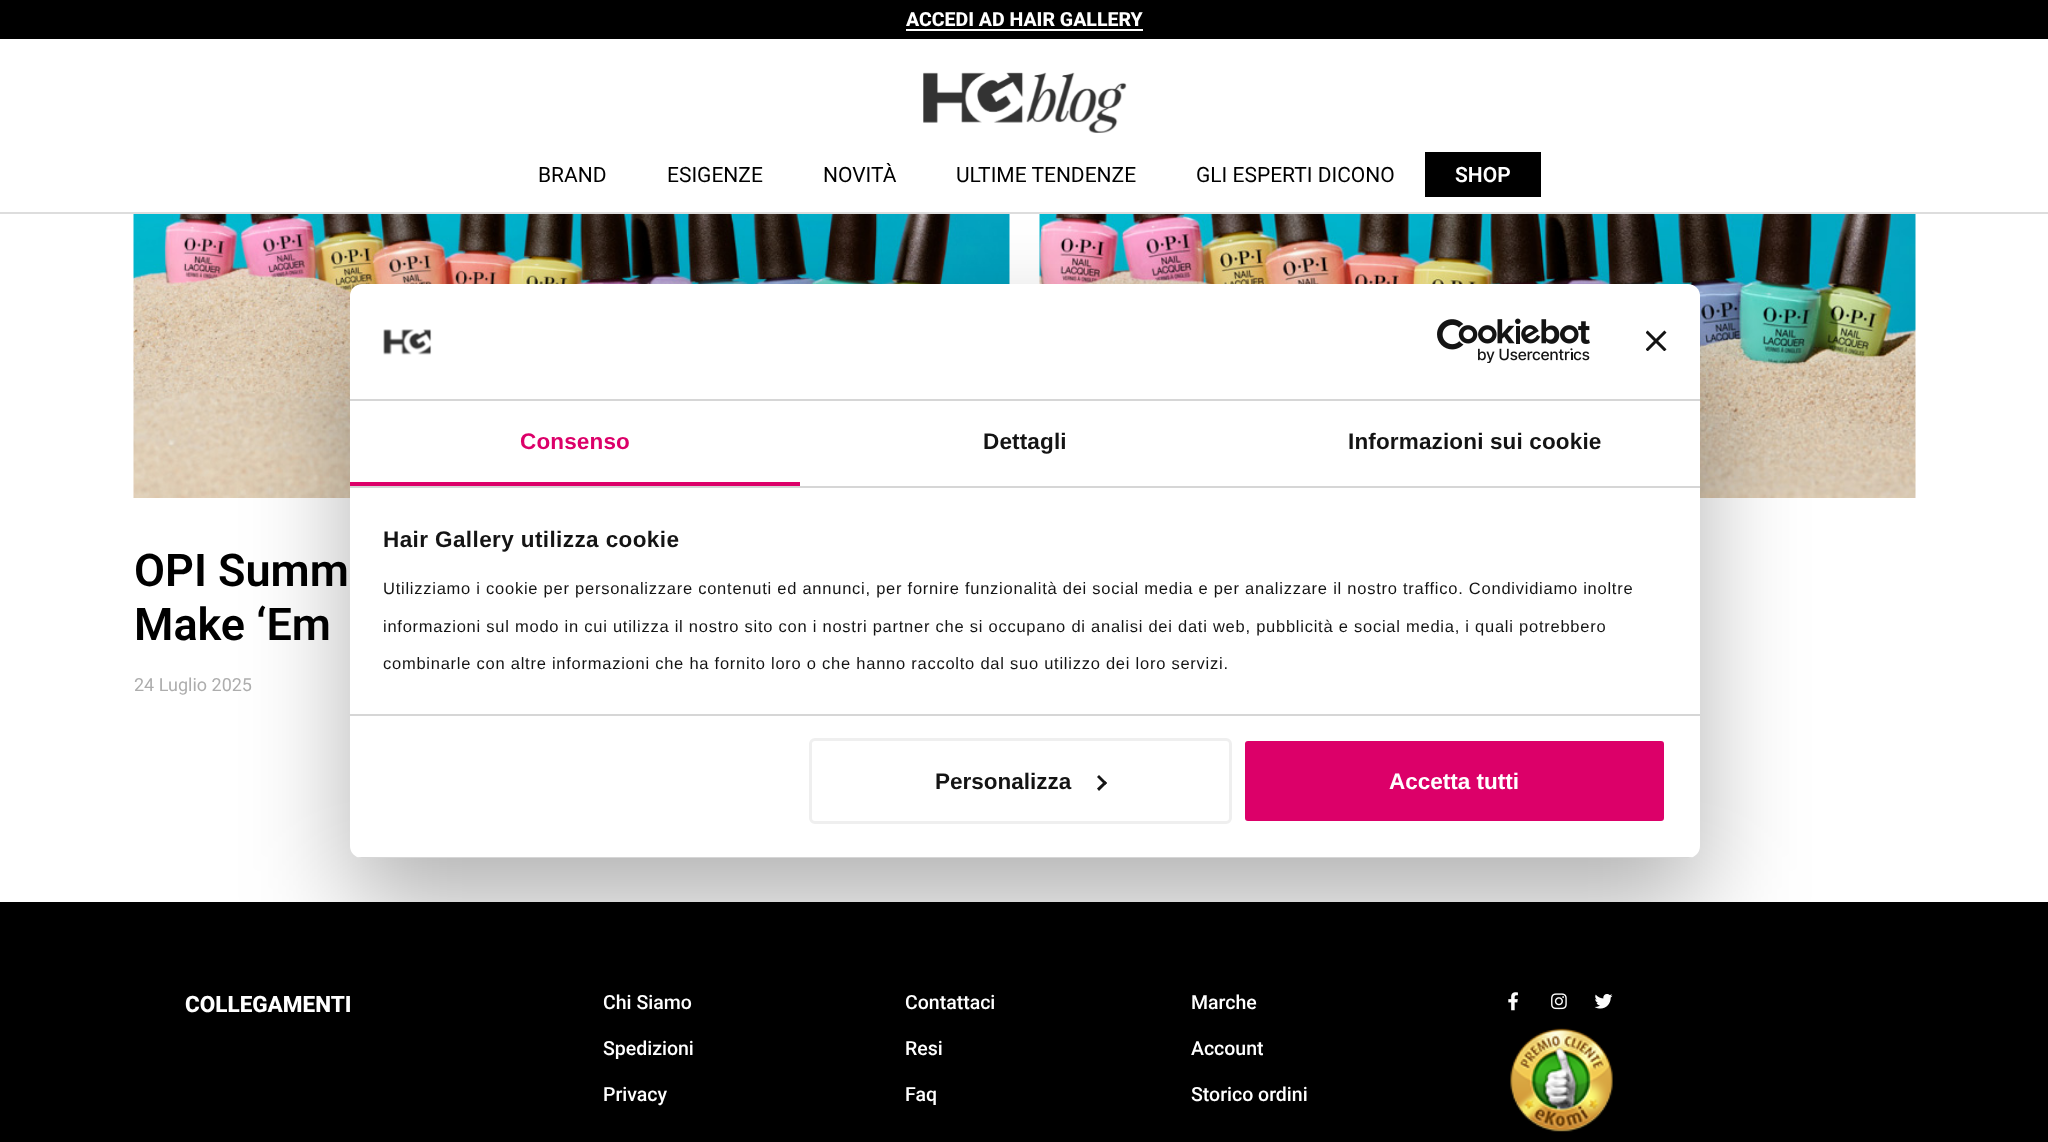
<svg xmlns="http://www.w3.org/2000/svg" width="2048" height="1142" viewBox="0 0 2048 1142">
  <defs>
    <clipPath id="clip1"><rect x="350" y="284" width="1350" height="574" rx="12"/></clipPath>
  </defs>
  <rect width="100%" height="100%" fill="#fff"/>
  <path d="M0 0h2048v39H0z" fill="#000"/>
  <path d="M906 29h237v2H906z" fill="#fff"/>
  <image x="923" y="72" width="204" height="61" href="img/1.png"/>
  <path d="M0 212h2048v2H0z" fill="#ddd"/>
  <path d="M1425 152h116v45H1425z" fill="#000"/>
  <image x="1039" y="214" width="877" height="284" href="img/2.png"/>
  <image x="133" y="214" width="877" height="284" href="img/3.png"/>
  <path d="M0 902h2048v240H0z" fill="#000"/>
  <image x="1508" y="992" width="10" height="19" href="img/7.png"/>
  <image x="1551" y="993" width="16" height="17" href="img/8.png"/>
  <image x="1594" y="994" width="19" height="15" href="img/9.png"/>
  <image x="1510" y="1028" width="103" height="104" href="img/10.png"/>
  <rect x="350" y="332" width="1350" height="574" rx="12" fill="#0000004d" filter="blur(51px)"/>
  <rect x="350" y="284" width="1350" height="574" rx="12" fill="#fff"/>
  <path d="M350 399h1350v2H350z" fill="#d6d6d6"/>
  <image x="383" y="329" width="49" height="26" href="img/4.png"/>
  <image x="1437" y="318" width="153" height="45" href="img/5.png"/>
  <image x="1646" y="330" width="21" height="21" href="img/6.png"/>
  <path d="M350 486h1350v2H350z" fill="#d6d6d6"/>
  <path d="M350 482h450v4H350z" fill="#dc0069"/>
  <path d="M350 714h1350v2H350z" fill="#d6d6d6"/>
  <g clip-path="url(#clip1)">
    <path d="M350 857h1350v1H350z" fill="#d6d6d6"/>
  </g>
  <rect x="810.5" y="739.5" width="420" height="83" rx="4.5" fill="none" stroke="#efefef" stroke-width="3"/>
  <path d="M1099 775L1107 783L1105 785L1097 777Z" fill="#141414"/>
  <path d="M1105 781L1107 783L1099 791L1097 788.5Z" fill="#141414"/>
  <rect x="1243.5" y="739.5" width="422" height="83" rx="4.5" fill="#dc0069" stroke="#fff" stroke-width="3"/>
  <text x="906" y="26" font-family="Roboto" font-size="19.5" font-weight="800" fill="#fff">ACCEDI AD HAIR GALLERY</text>
  <g font-family="Roboto" font-size="21" fill="#000">
    <text x="538" y="182">BRAND</text>
    <text x="667" y="182">ESIGENZE</text>
    <text x="823" y="182">NOVITÀ</text>
    <text x="956" y="182">ULTIME TENDENZE</text>
    <text x="1196" y="182">GLI ESPERTI DICONO</text>
  </g>
  <text x="1455" y="182" font-family="Roboto" font-size="21" font-weight="600" fill="#fff">SHOP</text>
  <g font-family="Roboto" font-size="45" font-weight="600" fill="#000">
    <text x="134" y="586">OPI Summ</text>
    <text x="134" y="640">Make ‘Em</text>
  </g>
  <text x="134" y="691" font-family="Roboto" font-size="18" fill="#adadad">24 Luglio 2025</text>
  <text x="520" y="449" font-family="Liberation Sans" font-size="22.5" font-weight="bold" letter-spacing="0.15" fill="#dc0069">Consenso</text>
  <g font-family="Liberation Sans" font-size="22.5" font-weight="bold" letter-spacing="0.15" fill="#141414">
    <text x="983" y="449">Dettagli</text>
    <text x="1348" y="449">Informazioni sui cookie</text>
  </g>
  <text x="383" y="547" font-family="Liberation Sans" font-size="22.5" font-weight="bold" letter-spacing="0.4" fill="#141414">Hair Gallery utilizza cookie</text>
  <g font-family="Liberation Sans" font-size="16.5" letter-spacing="0.75" fill="#141414">
    <text x="383" y="594">Utilizziamo i cookie per personalizzare contenuti ed annunci, per fornire funzionalità dei social media e per analizzare il nostro traffico. Condividiamo inoltre</text>
    <text x="383" y="632">informazioni sul modo in cui utilizza il nostro sito con i nostri partner che si occupano di analisi dei dati web, pubblicità e social media, i quali potrebbero</text>
    <text x="383" y="669">combinarle con altre informazioni che ha fornito loro o che hanno raccolto dal suo utilizzo dei loro servizi.</text>
  </g>
  <text x="935" y="789" font-family="Liberation Sans" font-size="22.5" font-weight="bold" fill="#141414">Personalizza</text>
  <text x="1389" y="789" font-family="Liberation Sans" font-size="22.5" font-weight="bold" fill="#fff">Accetta tutti</text>
  <text x="185" y="1012" font-family="Roboto" font-size="22.5" font-weight="800" fill="#fff">COLLEGAMENTI</text>
  <g font-family="Roboto" font-size="19.5" font-weight="500" fill="#fff">
    <text x="603" y="1009">Chi Siamo</text>
    <text x="603" y="1055">Spedizioni</text>
    <text x="603" y="1101">Privacy</text>
    <text x="905" y="1009">Contattaci</text>
    <text x="905" y="1055">Resi</text>
    <text x="905" y="1101">Faq</text>
    <text x="1191" y="1009">Marche</text>
    <text x="1191" y="1055">Account</text>
    <text x="1191" y="1101">Storico ordini</text>
  </g>
</svg>
